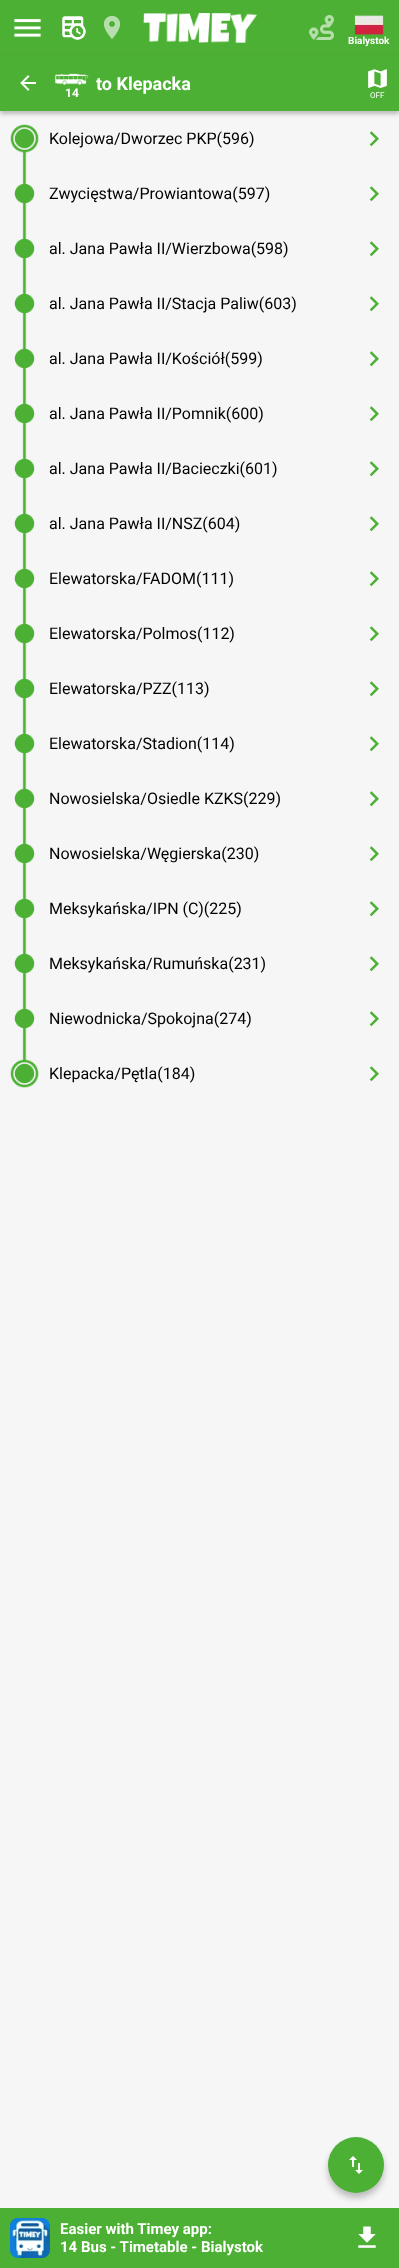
<svg xmlns="http://www.w3.org/2000/svg" width="399" height="2268" viewBox="0 0 399 2268">
  <rect width="100%" height="100%" fill="#f6f6f6"/>
  <path d="M0 0h399v55H0z" fill="#4bb033"/>
  <image x="14" y="19" width="27" height="18" href="img/1.png"/>
  <image x="62" y="16" width="24" height="24" href="img/2.png"/>
  <image x="103" y="15" width="18" height="24" href="img/3.png"/>
  <image x="143" y="13" width="114" height="30" href="img/4.png"/>
  <image x="309" y="15" width="25" height="25" href="img/5.png"/>
  <image x="354" y="15" width="30" height="20" href="img/6.png"/>
  <path d="M0 58h399v56H0z" fill="#0000003d" filter="blur(2px)"/>
  <path d="M0 55h399v56H0z" fill="#4bb033"/>
  <image x="20" y="75" width="16" height="16" href="img/7.png"/>
  <image x="54" y="73" width="35" height="12" href="img/8.png"/>
  <image x="368" y="69" width="19" height="19" href="img/9.png"/>
  <image x="10" y="124" width="29" height="42" href="img/10.png"/>
  <image x="369" y="131" width="10" height="16" href="img/11.png"/>
  <image x="14" y="166" width="21" height="55" href="img/12.png"/>
  <image x="369" y="186" width="10" height="16" href="img/11.png"/>
  <image x="14" y="221" width="21" height="55" href="img/12.png"/>
  <image x="369" y="241" width="10" height="16" href="img/11.png"/>
  <image x="14" y="276" width="21" height="55" href="img/12.png"/>
  <image x="369" y="296" width="10" height="16" href="img/11.png"/>
  <image x="14" y="331" width="21" height="55" href="img/12.png"/>
  <image x="369" y="351" width="10" height="16" href="img/11.png"/>
  <image x="14" y="386" width="21" height="55" href="img/12.png"/>
  <image x="369" y="406" width="10" height="16" href="img/11.png"/>
  <image x="14" y="441" width="21" height="55" href="img/12.png"/>
  <image x="369" y="461" width="10" height="16" href="img/11.png"/>
  <image x="14" y="496" width="21" height="55" href="img/12.png"/>
  <image x="369" y="516" width="10" height="16" href="img/11.png"/>
  <image x="14" y="551" width="21" height="55" href="img/12.png"/>
  <image x="369" y="571" width="10" height="16" href="img/11.png"/>
  <image x="14" y="606" width="21" height="55" href="img/12.png"/>
  <image x="369" y="626" width="10" height="16" href="img/11.png"/>
  <image x="14" y="661" width="21" height="55" href="img/12.png"/>
  <image x="369" y="681" width="10" height="16" href="img/11.png"/>
  <image x="14" y="716" width="21" height="55" href="img/12.png"/>
  <image x="369" y="736" width="10" height="16" href="img/11.png"/>
  <image x="14" y="771" width="21" height="55" href="img/12.png"/>
  <image x="369" y="791" width="10" height="16" href="img/11.png"/>
  <image x="14" y="826" width="21" height="55" href="img/12.png"/>
  <image x="369" y="846" width="10" height="16" href="img/11.png"/>
  <image x="14" y="881" width="21" height="55" href="img/12.png"/>
  <image x="369" y="901" width="10" height="16" href="img/11.png"/>
  <image x="14" y="936" width="21" height="55" href="img/12.png"/>
  <image x="369" y="956" width="10" height="16" href="img/11.png"/>
  <image x="14" y="991" width="21" height="55" href="img/12.png"/>
  <image x="369" y="1011" width="10" height="16" href="img/11.png"/>
  <image x="10" y="1046" width="29" height="42" href="img/13.png"/>
  <image x="369" y="1066" width="10" height="16" href="img/11.png"/>
  <rect x="328" y="2142" width="56" height="56" rx="28" fill="#0000003d" filter="blur(3px)"/>
  <circle cx="356" cy="2165" r="28" fill="#4bb033"/>
  <image x="349" y="2156" width="14" height="18" href="img/14.png"/>
  <path d="M0 2208h399v60H0z" fill="#4bb033"/>
  <image x="10" y="2218" width="40" height="40" href="img/15.png"/>
  <image x="358" y="2226" width="18" height="22" href="img/16.png"/>
  <text x="348" y="44" font-family="Roboto" font-size="10" font-weight="bold" fill="#fff">Bialystok</text>
  <text x="65" y="97" font-family="Roboto" font-size="12" font-weight="bold" fill="#fff">14</text>
  <text x="96" y="90" font-family="Roboto" font-size="18" font-weight="bold" fill="#fff">to Klepacka</text>
  <text x="370" y="98" font-family="Roboto" font-size="8" fill="#fff">OFF</text>
  <g font-family="Roboto" font-size="16" fill="#000">
    <text x="49" y="144">Kolejowa/Dworzec PKP(596)</text>
    <text x="49" y="199">Zwycięstwa/Prowiantowa(597)</text>
    <text x="49" y="254">al. Jana Pawła II/Wierzbowa(598)</text>
    <text x="49" y="309">al. Jana Pawła II/Stacja Paliw(603)</text>
    <text x="49" y="364">al. Jana Pawła II/Kościół(599)</text>
    <text x="49" y="419">al. Jana Pawła II/Pomnik(600)</text>
    <text x="49" y="474">al. Jana Pawła II/Bacieczki(601)</text>
    <text x="49" y="529">al. Jana Pawła II/NSZ(604)</text>
    <text x="49" y="584">Elewatorska/FADOM(111)</text>
    <text x="49" y="639">Elewatorska/Polmos(112)</text>
    <text x="49" y="694">Elewatorska/PZZ(113)</text>
    <text x="49" y="749">Elewatorska/Stadion(114)</text>
    <text x="49" y="804">Nowosielska/Osiedle KZKS(229)</text>
    <text x="49" y="859">Nowosielska/Węgierska(230)</text>
    <text x="49" y="914">Meksykańska/IPN (C)(225)</text>
    <text x="49" y="969">Meksykańska/Rumuńska(231)</text>
    <text x="49" y="1024">Niewodnicka/Spokojna(274)</text>
    <text x="49" y="1079">Klepacka/Pętla(184)</text>
  </g>
  <g font-family="Roboto" font-size="15" font-weight="bold" fill="#fff">
    <text x="60" y="2234">Easier with Timey app:</text>
    <text x="60" y="2252">14 Bus - Timetable - Bialystok</text>
  </g>
</svg>
